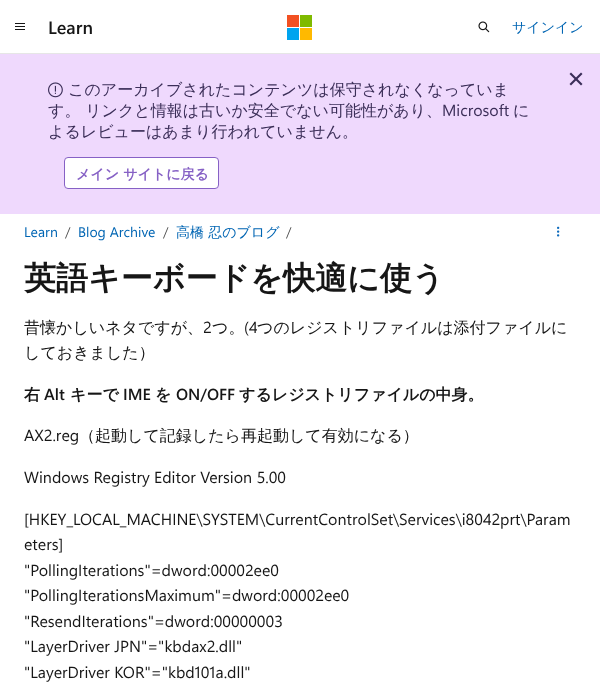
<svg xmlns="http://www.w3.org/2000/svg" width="600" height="688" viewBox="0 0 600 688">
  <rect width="100%" height="100%" fill="#fff"/>
  <path d="M0 53h600v1H0z" fill="#e6e6e6"/>
  <image x="15" y="23" width="10" height="7" href="img/1.png"/>
  <path d="M287 15h12v12H287z" fill="#f25022"/>
  <path d="M300 15h12v12H300z" fill="#7fba00"/>
  <path d="M287 28h12v12H287z" fill="#00a4ef"/>
  <path d="M300 28h12v12H300z" fill="#ffb900"/>
  <image x="478" y="21" width="12" height="12" href="img/2.png"/>
  <path d="M0 54h600v160H0z" fill="#efd9fd"/>
  <path d="M571 72.5L582.5 84L581 85.5L569.5 74Z" fill="#3b2e58"/>
  <path d="M581 72.5L582.5 74L571 85.5L569.5 84Z" fill="#3b2e58"/>
  <image x="48" y="82" width="15" height="16" href="img/3.png"/>
  <rect x="64.5" y="157.5" width="154" height="31" rx="3.5" fill="#fff" stroke="#8661c5"/>
  <image x="557" y="226" width="3" height="11" href="img/4.png"/>
  <text x="48" y="34" font-family="Segoe UI" font-size="18" font-weight="600" fill="#161616">Learn</text>
  <text x="512" y="32" font-family="WenQuanYi Zen Hei" font-size="14" font-weight="500" fill="#0065b3">サインイン</text>
  <g font-family="WenQuanYi Zen Hei" font-size="16" font-weight="500" fill="#3b2e58">
    <text x="68" y="95">このアーカイブされたコンテンツは保守されなくなっていま</text>
    <text x="48" y="116">す。 リンクと情報は古いか安全でない可能性があり、</text>
  </g>
  <text x="442" y="116" font-family="Segoe UI" font-size="16" fill="#3b2e58">Microsoft</text>
  <g font-family="WenQuanYi Zen Hei" font-size="16" font-weight="500" fill="#3b2e58">
    <text x="513" y="116">に</text>
    <text x="48" y="137">よるレビューはあまり行われていません。</text>
  </g>
  <text x="76" y="179" font-family="WenQuanYi Zen Hei" font-size="14" font-weight="bold" fill="#8661c5">メイン サイトに戻る</text>
  <text x="24" y="237" font-family="Segoe UI" font-size="14" fill="#0065b3">Learn</text>
  <text x="65" y="237" font-family="Segoe UI" font-size="14" fill="#505050">/</text>
  <text x="78" y="237" font-family="Segoe UI" font-size="14" fill="#0065b3">Blog Archive</text>
  <text x="163" y="237" font-family="Segoe UI" font-size="14" fill="#505050">/</text>
  <text x="176" y="237" font-family="WenQuanYi Zen Hei" font-size="14" font-weight="500" fill="#0065b3">高橋 忍のブログ</text>
  <text x="286" y="237" font-family="Segoe UI" font-size="14" fill="#505050">/</text>
  <text x="24" y="289" font-family="WenQuanYi Zen Hei" font-size="32" font-weight="bold" fill="#161616">英語キーボードを快適に使う</text>
  <text x="24" y="333" font-family="WenQuanYi Zen Hei" font-size="16" font-weight="500" fill="#161616">昔懐かしいネタですが、</text>
  <text x="203" y="333" font-family="Segoe UI" font-size="16" fill="#161616">2</text>
  <text x="212" y="333" font-family="WenQuanYi Zen Hei" font-size="16" font-weight="500" fill="#161616">つ。</text>
  <text x="244" y="333" font-family="Segoe UI" font-size="16" fill="#161616">(4</text>
  <g font-family="WenQuanYi Zen Hei" font-size="16" font-weight="500" fill="#161616">
    <text x="257" y="333">つのレジストリファイルは添付ファイルに</text>
    <text x="24" y="358">しておきました）</text>
  </g>
  <text x="24" y="400" font-family="WenQuanYi Zen Hei" font-size="16" font-weight="bold" fill="#161616">右</text>
  <text x="44" y="400" font-family="Segoe UI" font-size="16" font-weight="600" fill="#161616">Alt</text>
  <text x="70" y="400" font-family="WenQuanYi Zen Hei" font-size="16" font-weight="bold" fill="#161616">キーで</text>
  <text x="123" y="400" font-family="Segoe UI" font-size="16" font-weight="600" fill="#161616">IME</text>
  <text x="155" y="400" font-family="WenQuanYi Zen Hei" font-size="16" font-weight="bold" fill="#161616">を</text>
  <text x="176" y="400" font-family="Segoe UI" font-size="16" font-weight="600" fill="#161616">ON/OFF</text>
  <text x="239" y="400" font-family="WenQuanYi Zen Hei" font-size="16" font-weight="bold" fill="#161616">するレジストリファイルの中身。</text>
  <text x="24" y="441" font-family="Segoe UI" font-size="16" fill="#161616">AX2.reg</text>
  <text x="79" y="441" font-family="WenQuanYi Zen Hei" font-size="16" font-weight="500" fill="#161616">（起動して記録したら再起動して有効になる）</text>
  <g font-family="Segoe UI" font-size="16" fill="#161616">
    <text x="24" y="483">Windows Registry Editor Version 5.00</text>
    <text x="24" y="525">[HKEY_LOCAL_MACHINE\SYSTEM\CurrentControlSet\Services\i8042prt\Param</text>
    <text x="24" y="550">eters]</text>
    <text x="24" y="576">"PollingIterations"=dword:00002ee0</text>
    <text x="24" y="601">"PollingIterationsMaximum"=dword:00002ee0</text>
    <text x="24" y="627">"ResendIterations"=dword:00000003</text>
    <text x="24" y="652">"LayerDriver JPN"="kbdax2.dll"</text>
    <text x="24" y="678">"LayerDriver KOR"="kbd101a.dll"</text>
  </g>
</svg>
